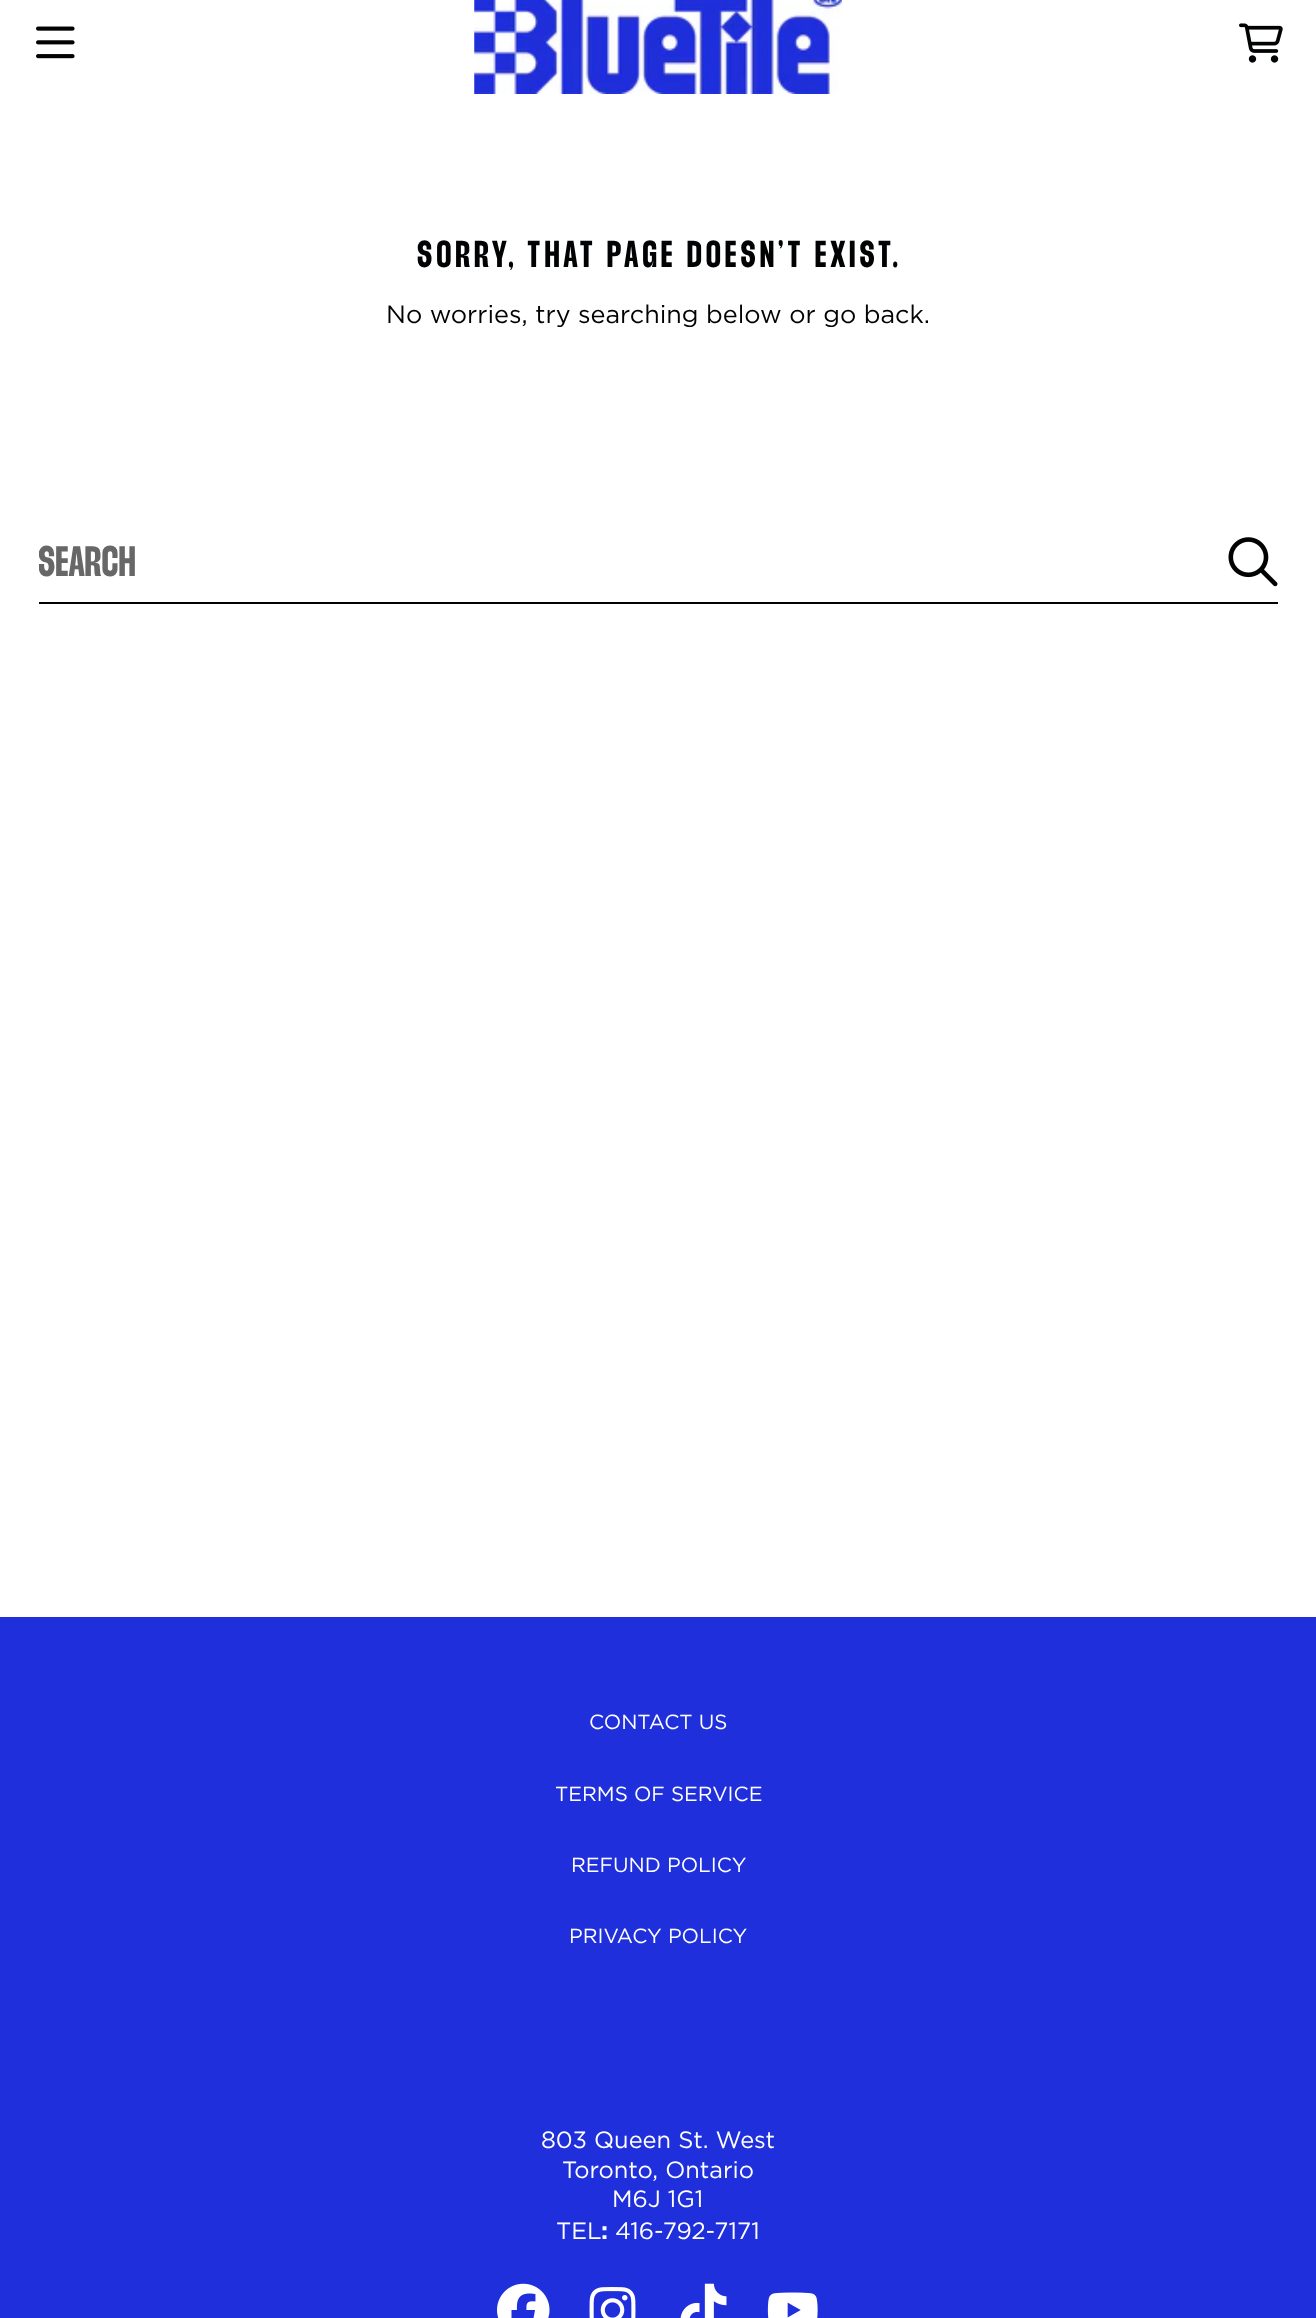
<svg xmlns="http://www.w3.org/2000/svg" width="1316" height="2318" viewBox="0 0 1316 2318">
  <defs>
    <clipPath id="clip1"><path d="M39 541h1053v40H39z"/></clipPath>
  </defs>
  <rect width="100%" height="100%" fill="#fff"/>
  <image x="36" y="26" width="39" height="33" href="img/1.png"/>
  <image x="474" y="0" width="368" height="94" href="img/2.png"/>
  <image x="1239" y="23" width="44" height="40" href="img/3.png"/>
  <path d="M39 602h1239v2H39z" fill="#010203"/>
  <image x="1228" y="537" width="50" height="50" href="img/4.png"/>
  <path d="M0 1617h1316v701H0z" fill="#1f2fdc"/>
  <image x="497" y="2283" width="53" height="35" href="img/5.png"/>
  <image x="589" y="2287" width="47" height="31" href="img/6.png"/>
  <image x="680" y="2283" width="47" height="35" href="img/7.png"/>
  <image x="767" y="2292" width="51" height="26" href="img/8.png"/>
  <text x="417" y="267" font-family="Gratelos" font-size="38.75" letter-spacing="3.9" fill="#010203">SORRY, THAT PAGE DOESN’T EXIST.</text>
  <text x="386" y="323" font-family="Gotham" font-size="25.2" fill="#010203">No worries, try searching below or go back.</text>
  <g clip-path="url(#clip1)">
    <text x="38" y="576" font-family="Gratelos" font-size="44" fill="#676768">SEARCH</text>
  </g>
  <g font-family="Gotham" font-size="20.5" fill="#fff">
    <text x="589" y="1729">CONTACT US</text>
    <text x="555" y="1801">TERMS OF SERVICE</text>
    <text x="571" y="1872">REFUND POLICY</text>
    <text x="569" y="1943">PRIVACY POLICY</text>
  </g>
  <g font-family="Gotham" font-size="23.6" fill="#fff">
    <text x="541" y="2148">803 Queen St. West</text>
    <text x="562" y="2178">Toronto, Ontario</text>
    <text x="612" y="2207">M6J 1G1</text>
    <text x="556" y="2239">TEL</text>
  </g>
  <text x="601" y="2239" font-family="Gotham" font-size="23.6" font-weight="bold" fill="#fff">:</text>
  <text x="615" y="2239" font-family="Gotham" font-size="23.6" fill="#fff">416-792-7171</text>
</svg>
